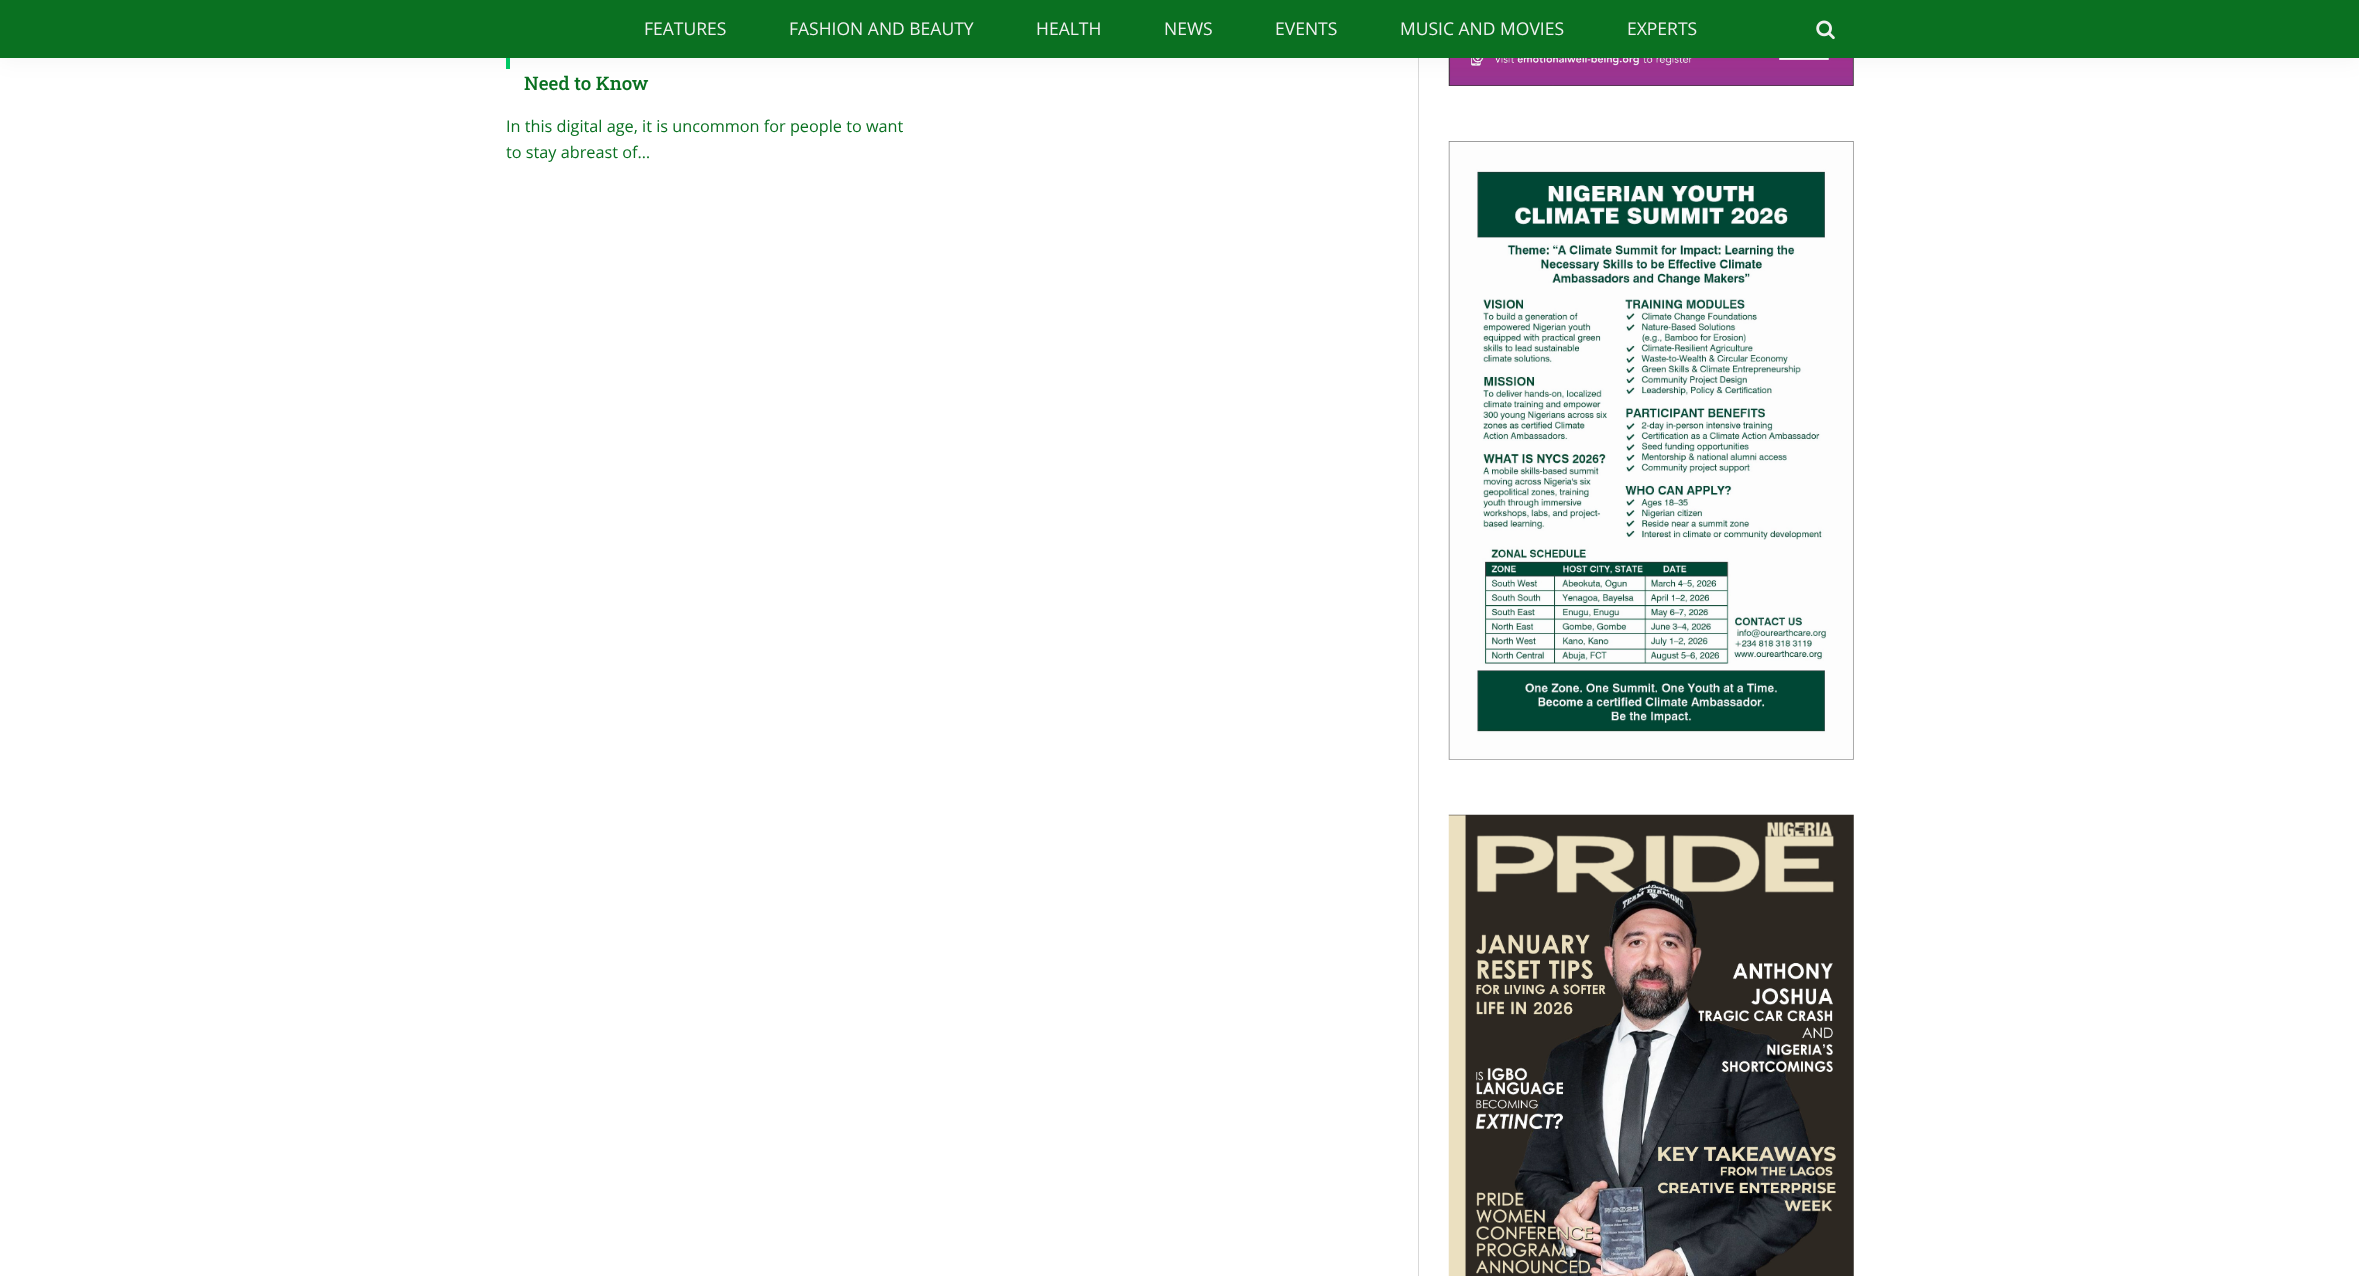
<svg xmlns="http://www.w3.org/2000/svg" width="2359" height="1276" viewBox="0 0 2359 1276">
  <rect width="100%" height="100%" fill="#fff"/>
  <path d="M506 58h4v11H506z" fill="#0c6"/>
  <path d="M1418 58h1v1218H1418z" fill="#d9d9d9"/>
  <image x="1448" y="58" width="406" height="28" href="img/2.png"/>
  <path d="M0 0h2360v58H0z" fill="#0000000d" filter="blur(12.5px)"/>
  <path d="M0 0h2359v58H0z" fill="#0a7121"/>
  <image x="1816" y="20" width="19" height="20" href="img/1.png"/>
  <image x="1448" y="141" width="406" height="619" href="img/3.png"/>
  <image x="1448" y="814" width="406" height="462" href="img/4.png"/>
  <g font-family="Open Sans" font-size="17.5" fill="#f0f0f0">
    <text x="644" y="35">FEATURES</text>
    <text x="789" y="35">FASHION AND BEAUTY</text>
    <text x="1036" y="35">HEALTH</text>
    <text x="1164" y="35">NEWS</text>
    <text x="1275" y="35">EVENTS</text>
    <text x="1400" y="35">MUSIC AND MOVIES</text>
    <text x="1627" y="35">EXPERTS</text>
  </g>
  <text x="524" y="90" font-family="Roboto Slab" font-size="18.75" font-weight="500" fill="#0a7121">Need to Know</text>
  <g font-family="Open Sans" font-size="16.25" fill="#0a7121">
    <text x="506" y="132">In this digital age, it is uncommon for people to want</text>
    <text x="506" y="158">to stay abreast of…</text>
  </g>
</svg>
